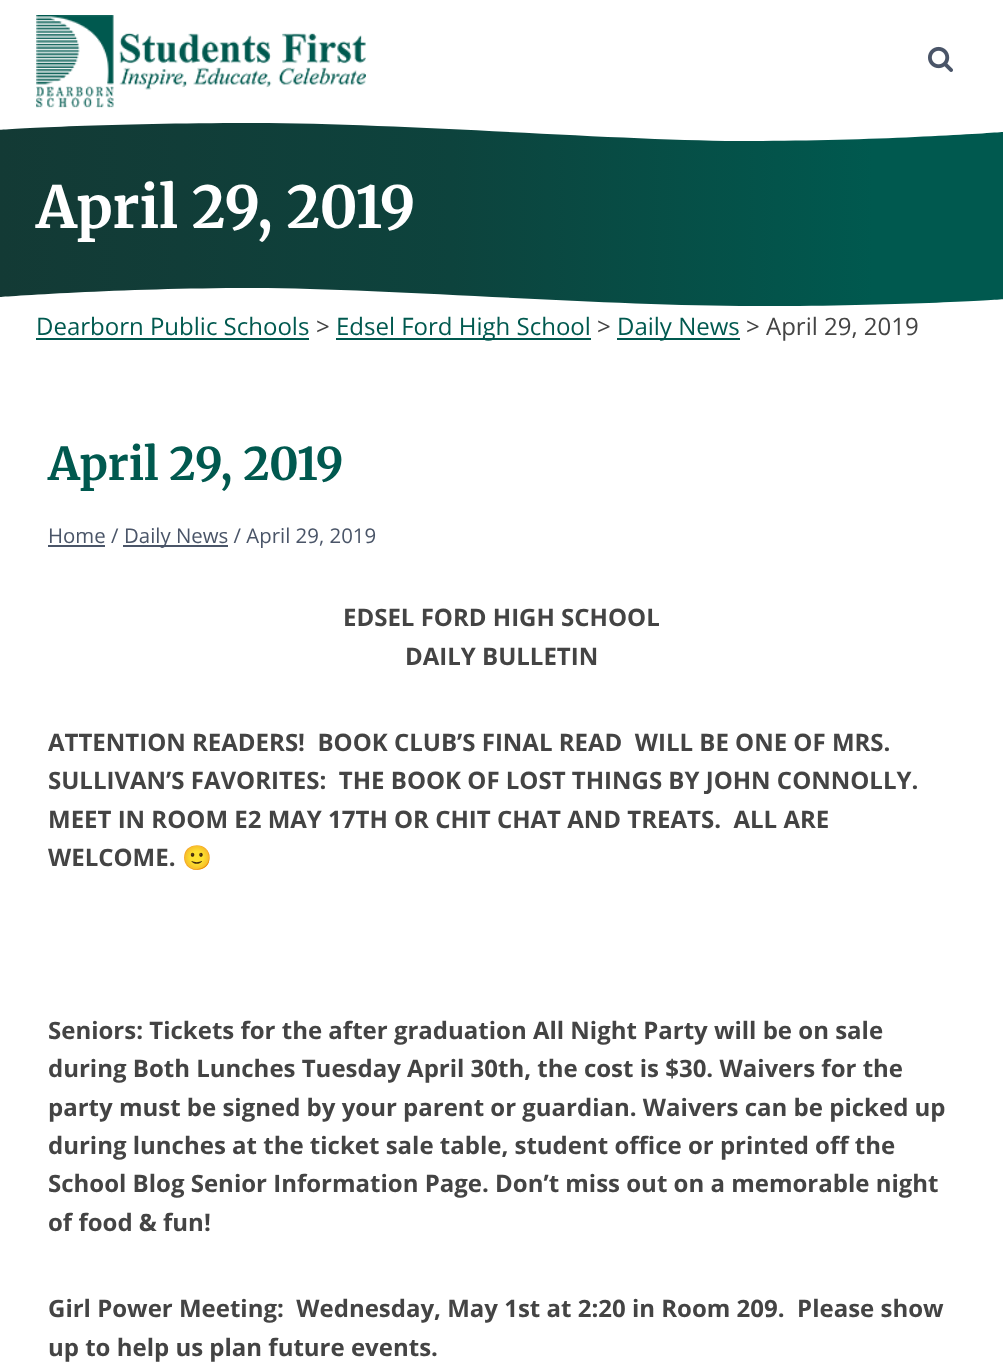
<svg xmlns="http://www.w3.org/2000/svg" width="1003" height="1369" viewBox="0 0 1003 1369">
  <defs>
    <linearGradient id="g1" gradientUnits="userSpaceOnUse" x1="0" y1="215" x2="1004" y2="215"><stop offset="0" stop-color="#133a35"/><stop offset="0.18" stop-color="#113d38"/><stop offset="0.45" stop-color="#0d433d"/><stop offset="0.87" stop-color="#00594f"/></linearGradient>
  </defs>
  <rect width="100%" height="100%" fill="#fff"/>
  <image x="36" y="15" width="330" height="93" href="img/1.png"/>
  <image x="928" y="46" width="25" height="26" href="img/2.png"/>
  <path d="M0 123h1003v183H0z" fill="url(#g1)"/>
  <path d="M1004 132C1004 132 883 141 752 141C622 141 405 123 250 123C94 123-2 130-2 130V118H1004Z" fill="#fff"/>
  <path d="M0 297C0 297 120 288 251 288C382 288 598 306 754 306C910 306 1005 299 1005 299V310H0Z" fill="#fff"/>
  <path d="M36 338h273v2H36z" fill="#00594f"/>
  <path d="M336 338h255v2H336z" fill="#00594f"/>
  <path d="M617 338h123v2H617z" fill="#00594f"/>
  <path d="M48 545h57v2H48z" fill="#4a5568"/>
  <path d="M123 545h105v2H123z" fill="#4a5568"/>
  <text x="36" y="228" font-family="Merriweather" font-size="57.75" font-weight="300" fill="#fff">April 29, 2019</text>
  <text x="36" y="335" font-family="Open Sans" font-size="24" fill="#00594f">Dearborn Public Schools</text>
  <text x="316" y="335" font-family="Open Sans" font-size="24" fill="#444">&gt;</text>
  <text x="336" y="335" font-family="Open Sans" font-size="24" fill="#00594f">Edsel Ford High School</text>
  <text x="597" y="335" font-family="Open Sans" font-size="24" fill="#444">&gt;</text>
  <text x="617" y="335" font-family="Open Sans" font-size="24" fill="#00594f">Daily News</text>
  <text x="746" y="335" font-family="Open Sans" font-size="24" fill="#444">&gt; April 29, 2019</text>
  <text x="48" y="480" font-family="Merriweather" font-size="45" font-weight="300" fill="#00594f">April 29, 2019</text>
  <g font-family="Open Sans" font-size="20.4" fill="#4a5568">
    <text x="48" y="543">Home /</text>
    <text x="124" y="543">Daily News / April 29, 2019</text>
  </g>
  <g font-family="Open Sans" font-size="24" font-weight="bold" fill="#444">
    <text x="343" y="626">EDSEL FORD HIGH SCHOOL</text>
    <text x="405" y="665">DAILY BULLETIN</text>
    <text x="48" y="751" xml:space="preserve">ATTENTION READERS!  BOOK CLUB’S FINAL READ  WILL BE ONE OF MRS.</text>
    <text x="48" y="789" xml:space="preserve">SULLIVAN’S FAVORITES:  THE BOOK OF LOST THINGS BY JOHN CONNOLLY.</text>
    <text x="48" y="828" xml:space="preserve">MEET IN ROOM E2 MAY 17TH OR CHIT CHAT AND TREATS.  ALL ARE</text>
    <text x="48" y="866">WELCOME.</text>
  </g>
  <text x="182" y="866" font-family="Noto Color Emoji" font-size="24" font-weight="bold" fill="#444">🙂</text>
  <g font-family="Open Sans" font-size="24" font-weight="bold" fill="#444">
    <text x="48" y="1039">Seniors: Tickets for the after graduation All Night Party will be on sale</text>
    <text x="48" y="1077">during Both Lunches Tuesday April 30th, the cost is $30. Waivers for the</text>
    <text x="48" y="1116">party must be signed by your parent or guardian. Waivers can be picked up</text>
    <text x="48" y="1154">during lunches at the ticket sale table, student office or printed off the</text>
    <text x="48" y="1192">School Blog Senior Information Page. Don’t miss out on a memorable night</text>
    <text x="48" y="1231">of food &amp; fun!</text>
    <text x="48" y="1317" xml:space="preserve">Girl Power Meeting:  Wednesday, May 1st at 2:20 in Room 209.  Please show</text>
    <text x="48" y="1356">up to help us plan future events.</text>
  </g>
</svg>
